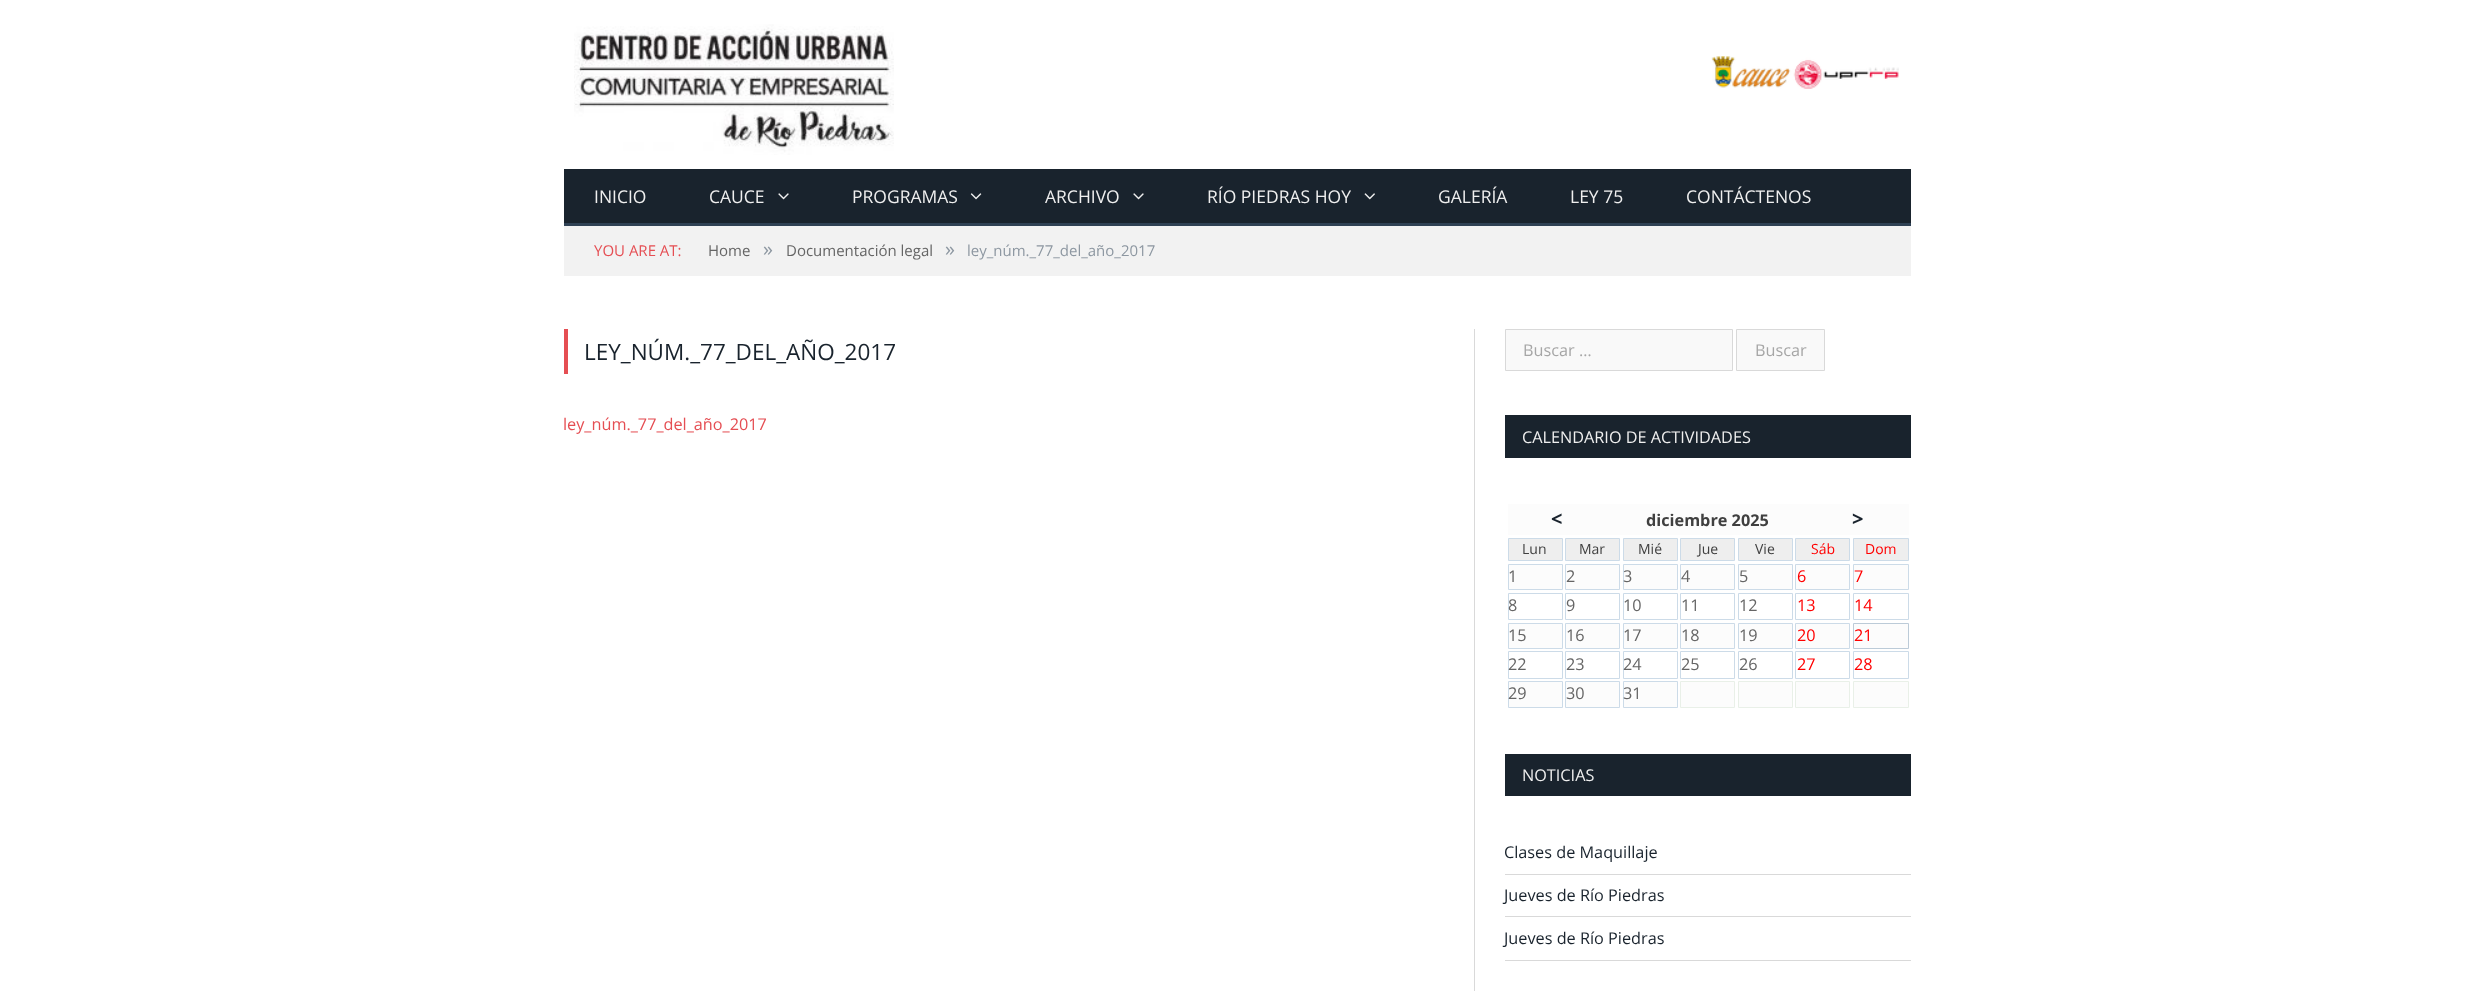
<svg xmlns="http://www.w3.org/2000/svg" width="2473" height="991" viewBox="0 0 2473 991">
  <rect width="100%" height="100%" fill="#fff"/>
  <image x="574" y="24" width="320" height="131" href="img/1.png"/>
  <image x="1711" y="56" width="188" height="33" href="img/2.png"/>
  <path d="M564 169h1347v54H564z" fill="#19232d"/>
  <path d="M564 223h1347v3H564z" fill="#2f4154"/>
  <image x="778" y="193" width="11" height="7" href="img/3.png"/>
  <image x="970" y="193" width="12" height="7" href="img/4.png"/>
  <image x="1133" y="193" width="11" height="7" href="img/3.png"/>
  <image x="1364" y="193" width="11" height="7" href="img/5.png"/>
  <path d="M564 226h1347v50H564z" fill="#f2f2f2"/>
  <path d="M564 329h4v45H564z" fill="#e54e53"/>
  <path d="M1474 329h1v662H1474z" fill="#d9d9d9"/>
  <path d="M1505.5 329.5h227v41H1505.5z" fill="#f9f9f9" stroke="#d9d9d9"/>
  <path d="M1736.5 329.5h88v41H1736.5z" fill="#f9f9f9" stroke="#d9d9d9"/>
  <path d="M1505 415h406v43H1505z" fill="#19232d"/>
  <path d="M1508 504h401v31H1508z" fill="#fcfcfc"/>
  <path d="M1508.5 538.5h54v22H1508.5z" fill="#eee" stroke="#ccdbe8"/>
  <path d="M1565.5 538.5h54v22H1565.5z" fill="#eee" stroke="#ccdbe8"/>
  <path d="M1623.5 538.5h54v22H1623.5z" fill="#eee" stroke="#ccdbe8"/>
  <path d="M1680.5 538.5h54v22H1680.5z" fill="#eee" stroke="#ccdbe8"/>
  <path d="M1738.5 538.5h54v22H1738.5z" fill="#eee" stroke="#ccdbe8"/>
  <path d="M1795.5 538.5h54v22H1795.5z" fill="#eee" stroke="#ccdbe8"/>
  <path d="M1853.5 538.5h55v22H1853.5z" fill="#eee" stroke="#ccdbe8"/>
  <path d="M1508.5 564.5h54v25H1508.5z" fill="#fcfcfc" stroke="#ccdbe8"/>
  <path d="M1565.5 564.5h54v25H1565.5z" fill="#fcfcfc" stroke="#ccdbe8"/>
  <path d="M1623.5 564.5h54v25H1623.5z" fill="#fcfcfc" stroke="#ccdbe8"/>
  <path d="M1680.5 564.5h54v25H1680.5z" fill="#fcfcfc" stroke="#ccdbe8"/>
  <path d="M1738.5 564.5h54v25H1738.5z" fill="#fcfcfc" stroke="#ccdbe8"/>
  <path d="M1795.5 564.5h54v25H1795.5z" fill="#fcfcfc" stroke="#ccdbe8"/>
  <path d="M1853.5 564.5h55v25H1853.5z" fill="#fcfcfc" stroke="#ccdbe8"/>
  <path d="M1508.5 593.5h54v26H1508.5z" fill="none" stroke="#ccdbe8"/>
  <path d="M1565.5 593.5h54v26H1565.5z" fill="none" stroke="#ccdbe8"/>
  <path d="M1623.5 593.5h54v26H1623.5z" fill="none" stroke="#ccdbe8"/>
  <path d="M1680.5 593.5h54v26H1680.5z" fill="none" stroke="#ccdbe8"/>
  <path d="M1738.5 593.5h54v26H1738.5z" fill="none" stroke="#ccdbe8"/>
  <path d="M1795.5 593.5h54v26H1795.5z" fill="none" stroke="#ccdbe8"/>
  <path d="M1853.5 593.5h55v26H1853.5z" fill="none" stroke="#ccdbe8"/>
  <path d="M1508.5 623.5h54v25H1508.5z" fill="#fcfcfc" stroke="#ccdbe8"/>
  <path d="M1565.5 623.5h54v25H1565.5z" fill="#fcfcfc" stroke="#ccdbe8"/>
  <path d="M1623.5 623.5h54v25H1623.5z" fill="#fcfcfc" stroke="#ccdbe8"/>
  <path d="M1680.5 623.5h54v25H1680.5z" fill="#fcfcfc" stroke="#ccdbe8"/>
  <path d="M1738.5 623.5h54v25H1738.5z" fill="#fcfcfc" stroke="#ccdbe8"/>
  <path d="M1795.5 623.5h54v25H1795.5z" fill="#fcfcfc" stroke="#ccdbe8"/>
  <path d="M1853.5 623.5h55v25H1853.5z" fill="#fcfcfc" stroke="#bccbd8"/>
  <path d="M1508.5 651.5h54v27H1508.5z" fill="none" stroke="#ccdbe8"/>
  <path d="M1565.5 651.5h54v27H1565.5z" fill="none" stroke="#ccdbe8"/>
  <path d="M1623.5 651.5h54v27H1623.5z" fill="none" stroke="#ccdbe8"/>
  <path d="M1680.5 651.5h54v27H1680.5z" fill="none" stroke="#ccdbe8"/>
  <path d="M1738.5 651.5h54v27H1738.5z" fill="none" stroke="#ccdbe8"/>
  <path d="M1795.5 651.5h54v27H1795.5z" fill="none" stroke="#ccdbe8"/>
  <path d="M1853.5 651.5h55v27H1853.5z" fill="none" stroke="#ccdbe8"/>
  <path d="M1508.5 681.5h54v26H1508.5z" fill="#fcfcfc" stroke="#ccdbe8"/>
  <path d="M1565.5 681.5h54v26H1565.5z" fill="#fcfcfc" stroke="#ccdbe8"/>
  <path d="M1623.5 681.5h54v26H1623.5z" fill="#fcfcfc" stroke="#ccdbe8"/>
  <path d="M1680.5 681.5h54v26H1680.5z" fill="#fcfcfc" stroke="#e9f0e8"/>
  <path d="M1738.5 681.5h54v26H1738.5z" fill="#fcfcfc" stroke="#e9f0e8"/>
  <path d="M1795.5 681.5h54v26H1795.5z" fill="#fcfcfc" stroke="#e9f0e8"/>
  <path d="M1853.5 681.5h55v26H1853.5z" fill="#fcfcfc" stroke="#e9f0e8"/>
  <path d="M1505 754h406v42H1505z" fill="#19232d"/>
  <path d="M1505 874h406v1H1505z" fill="#d9d9d9"/>
  <path d="M1505 916h406v1H1505z" fill="#d9d9d9"/>
  <path d="M1505 960h406v1H1505z" fill="#d9d9d9"/>
  <g font-family="Open Sans" font-size="17.5" fill="#efefef">
    <text x="594" y="203">INICIO</text>
    <text x="709" y="203">CAUCE</text>
    <text x="852" y="203">PROGRAMAS</text>
    <text x="1045" y="203">ARCHIVO</text>
    <text x="1207" y="203">RÍO PIEDRAS HOY</text>
    <text x="1438" y="203">GALERÍA</text>
    <text x="1570" y="203">LEY 75</text>
    <text x="1686" y="203">CONTÁCTENOS</text>
  </g>
  <text x="594" y="256" font-family="Open Sans" font-size="15" fill="#e54e53">YOU ARE AT:</text>
  <text x="708" y="256" font-family="Open Sans" font-size="15" fill="#656565">Home</text>
  <text x="763" y="256" font-family="Open Sans" font-size="20" fill="#8d97a1">»</text>
  <text x="786" y="256" font-family="Open Sans" font-size="15" fill="#656565">Documentación legal</text>
  <text x="945" y="256" font-family="Open Sans" font-size="20" fill="#8d97a1">»</text>
  <text x="967" y="256" font-family="Open Sans" font-size="15" fill="#8d97a1">ley_núm._77_del_año_2017</text>
  <text x="584" y="360" font-family="Open Sans" font-size="22.5" fill="#19232d">LEY_NÚM._77_DEL_AÑO_2017</text>
  <text x="563" y="430" font-family="Open Sans" font-size="16.25" fill="#e54e53">ley_núm._77_del_año_2017</text>
  <g font-family="Open Sans" font-size="16.25" fill="#a6a6a6">
    <text x="1523" y="356">Buscar …</text>
    <text x="1755" y="356">Buscar</text>
  </g>
  <text x="1522" y="443" font-family="Open Sans" font-size="16.25" fill="#efefef">CALENDARIO DE ACTIVIDADES</text>
  <text x="1551" y="526" font-family="Open Sans" font-size="20" font-weight="bold" fill="#19232d">&lt;</text>
  <text x="1646" y="526" font-family="Open Sans" font-size="16.25" font-weight="bold" fill="#404040">diciembre 2025</text>
  <text x="1852" y="526" font-family="Open Sans" font-size="20" font-weight="bold" fill="#19232d">&gt;</text>
  <g font-family="Open Sans" font-size="14" fill="#404040">
    <text x="1522" y="554">Lun</text>
    <text x="1579" y="554">Mar</text>
    <text x="1638" y="554">Mié</text>
    <text x="1698" y="554">Jue</text>
    <text x="1755" y="554">Vie</text>
  </g>
  <g font-family="Open Sans" font-size="14" fill="#f00">
    <text x="1811" y="554">Sáb</text>
    <text x="1865" y="554">Dom</text>
  </g>
  <g font-family="Open Sans" font-size="16.25" fill="#656565">
    <text x="1508" y="582">1</text>
    <text x="1566" y="582">2</text>
    <text x="1623" y="582">3</text>
    <text x="1681" y="582">4</text>
    <text x="1739" y="582">5</text>
  </g>
  <g font-family="Open Sans" font-size="16.25" fill="#f00">
    <text x="1797" y="582">6</text>
    <text x="1854" y="582">7</text>
  </g>
  <g font-family="Open Sans" font-size="16.25" fill="#656565">
    <text x="1508" y="611">8</text>
    <text x="1566" y="611">9</text>
    <text x="1623" y="611">10</text>
    <text x="1681" y="611">11</text>
    <text x="1739" y="611">12</text>
  </g>
  <g font-family="Open Sans" font-size="16.25" fill="#f00">
    <text x="1797" y="611">13</text>
    <text x="1854" y="611">14</text>
  </g>
  <g font-family="Open Sans" font-size="16.25" fill="#656565">
    <text x="1508" y="641">15</text>
    <text x="1566" y="641">16</text>
    <text x="1623" y="641">17</text>
    <text x="1681" y="641">18</text>
    <text x="1739" y="641">19</text>
  </g>
  <g font-family="Open Sans" font-size="16.25" fill="#f00">
    <text x="1797" y="641">20</text>
    <text x="1854" y="641">21</text>
  </g>
  <g font-family="Open Sans" font-size="16.25" fill="#656565">
    <text x="1508" y="670">22</text>
    <text x="1566" y="670">23</text>
    <text x="1623" y="670">24</text>
    <text x="1681" y="670">25</text>
    <text x="1739" y="670">26</text>
  </g>
  <g font-family="Open Sans" font-size="16.25" fill="#f00">
    <text x="1797" y="670">27</text>
    <text x="1854" y="670">28</text>
  </g>
  <g font-family="Open Sans" font-size="16.25" fill="#656565">
    <text x="1508" y="699">29</text>
    <text x="1566" y="699">30</text>
    <text x="1623" y="699">31</text>
  </g>
  <text x="1522" y="781" font-family="Open Sans" font-size="16.25" fill="#efefef">NOTICIAS</text>
  <g font-family="Open Sans" font-size="16.25" fill="#19232d">
    <text x="1504" y="858">Clases de Maquillaje</text>
    <text x="1504" y="901">Jueves de Río Piedras</text>
    <text x="1504" y="944">Jueves de Río Piedras</text>
  </g>
</svg>
